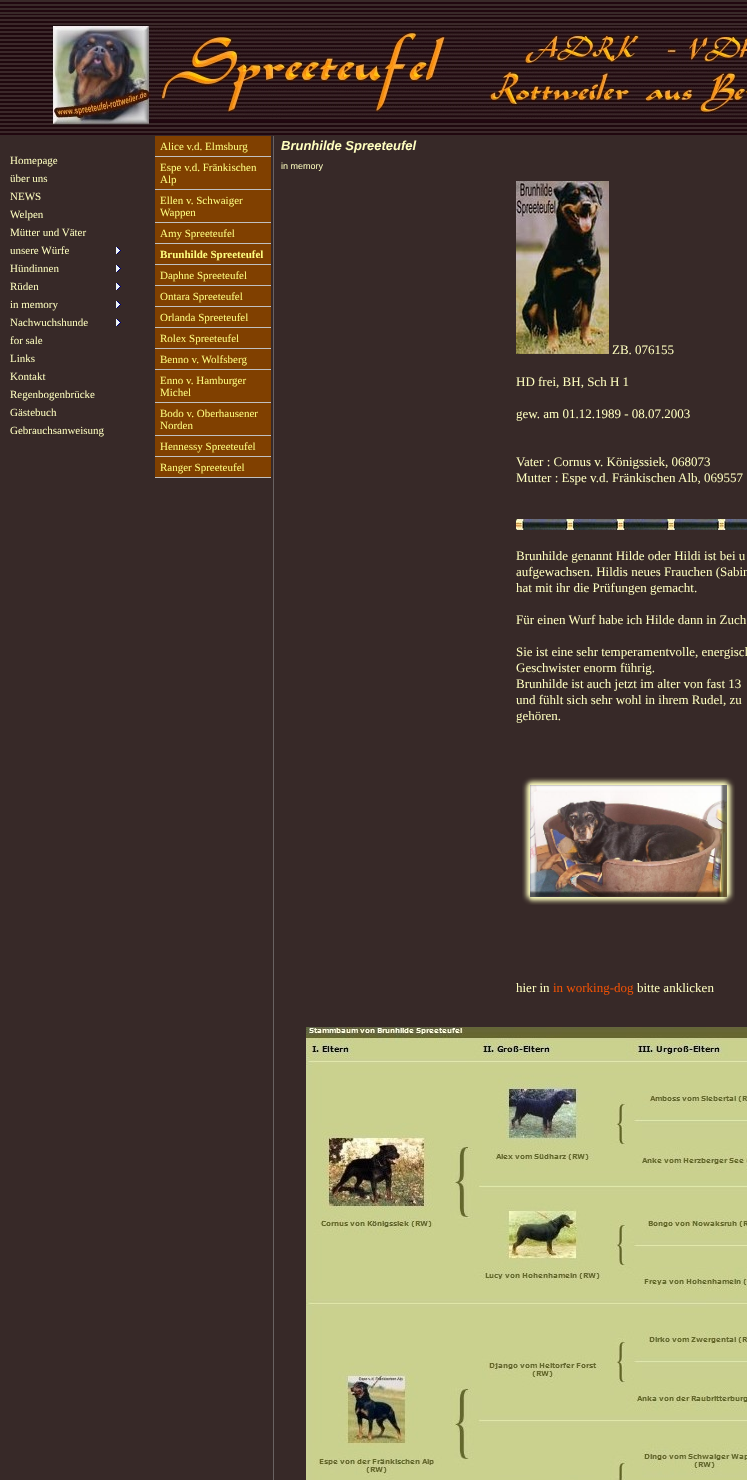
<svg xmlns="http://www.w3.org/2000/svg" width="747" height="1480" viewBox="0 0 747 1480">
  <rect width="100%" height="100%" fill="#fff"/>
  <image x="0" y="0" width="747" height="15" href="img/1.png"/>
  <image x="0" y="15" width="747" height="120" href="img/2.png"/>
  <path d="M0 135h747v1345H0z" fill="#372928"/>
  <image x="116" y="247" width="5" height="7" href="img/3.png"/>
  <image x="116" y="265" width="5" height="7" href="img/3.png"/>
  <image x="116" y="283" width="5" height="7" href="img/3.png"/>
  <image x="116" y="301" width="5" height="7" href="img/3.png"/>
  <image x="116" y="319" width="5" height="7" href="img/3.png"/>
  <path d="M155 136h116v20H155z" fill="#804000"/>
  <path d="M155 156h116v1H155z" fill="#c0c0c0"/>
  <path d="M155 157h116v32H155z" fill="#804000"/>
  <path d="M155 189h116v1H155z" fill="#c0c0c0"/>
  <path d="M155 190h116v32H155z" fill="#804000"/>
  <path d="M155 222h116v1H155z" fill="#c0c0c0"/>
  <path d="M155 223h116v20H155z" fill="#804000"/>
  <path d="M155 243h116v1H155z" fill="#c0c0c0"/>
  <path d="M155 244h116v20H155z" fill="#804000"/>
  <path d="M155 264h116v1H155z" fill="#c0c0c0"/>
  <path d="M155 265h116v20H155z" fill="#804000"/>
  <path d="M155 285h116v1H155z" fill="#c0c0c0"/>
  <path d="M155 286h116v20H155z" fill="#804000"/>
  <path d="M155 306h116v1H155z" fill="#c0c0c0"/>
  <path d="M155 307h116v20H155z" fill="#804000"/>
  <path d="M155 327h116v1H155z" fill="#c0c0c0"/>
  <path d="M155 328h116v20H155z" fill="#804000"/>
  <path d="M155 348h116v1H155z" fill="#c0c0c0"/>
  <path d="M155 349h116v20H155z" fill="#804000"/>
  <path d="M155 369h116v1H155z" fill="#c0c0c0"/>
  <path d="M155 370h116v32H155z" fill="#804000"/>
  <path d="M155 402h116v1H155z" fill="#c0c0c0"/>
  <path d="M155 403h116v32H155z" fill="#804000"/>
  <path d="M155 435h116v1H155z" fill="#c0c0c0"/>
  <path d="M155 436h116v20H155z" fill="#804000"/>
  <path d="M155 456h116v1H155z" fill="#c0c0c0"/>
  <path d="M155 457h116v20H155z" fill="#804000"/>
  <path d="M155 477h116v1H155z" fill="#c0c0c0"/>
  <path d="M273 136h1v1344H273z" fill="#696262"/>
  <image x="516" y="181" width="93" height="173" href="img/4.png"/>
  <image x="516" y="519" width="231" height="11" href="img/5.png"/>
  <image x="522" y="777" width="213" height="128" href="img/6.png"/>
  <image x="306" y="1027" width="441" height="453" href="img/7.png"/>
  <g font-family="Liberation Serif" font-size="11" fill="#ffffc0">
    <text x="10" y="164">Homepage</text>
    <text x="10" y="182">über uns</text>
    <text x="10" y="200">NEWS</text>
    <text x="10" y="218">Welpen</text>
    <text x="10" y="236">Mütter und Väter</text>
    <text x="10" y="254">unsere Würfe</text>
    <text x="10" y="272">Hündinnen</text>
    <text x="10" y="290">Rüden</text>
    <text x="10" y="308">in memory</text>
    <text x="10" y="326">Nachwuchshunde</text>
    <text x="10" y="344">for sale</text>
    <text x="10" y="362">Links</text>
    <text x="10" y="380">Kontakt</text>
    <text x="10" y="398">Regenbogenbrücke</text>
    <text x="10" y="416">Gästebuch</text>
    <text x="10" y="434">Gebrauchsanweisung</text>
  </g>
  <g font-family="Liberation Serif" font-size="11" fill="#ffff80">
    <text x="160" y="150">Alice v.d. Elmsburg</text>
    <text x="160" y="171">Espe v.d. Fränkischen</text>
    <text x="160" y="183">Alp</text>
    <text x="160" y="204">Ellen v. Schwaiger</text>
    <text x="160" y="216">Wappen</text>
    <text x="160" y="237">Amy Spreeteufel</text>
  </g>
  <text x="160" y="258" font-family="Liberation Serif" font-size="11" font-weight="bold" fill="#ffff80">Brunhilde Spreeteufel</text>
  <g font-family="Liberation Serif" font-size="11" fill="#ffff80">
    <text x="160" y="279">Daphne Spreeteufel</text>
    <text x="160" y="300">Ontara Spreeteufel</text>
    <text x="160" y="321">Orlanda Spreeteufel</text>
    <text x="160" y="342">Rolex Spreeteufel</text>
    <text x="160" y="363">Benno v. Wolfsberg</text>
    <text x="160" y="384">Enno v. Hamburger</text>
    <text x="160" y="396">Michel</text>
    <text x="160" y="417">Bodo v. Oberhausener</text>
    <text x="160" y="429">Norden</text>
    <text x="160" y="450">Hennessy Spreeteufel</text>
    <text x="160" y="471">Ranger Spreeteufel</text>
  </g>
  <text x="281" y="150" font-family="Liberation Sans" font-size="13" font-weight="bold" font-style="italic" fill="#ffffc0">Brunhilde Spreeteufel</text>
  <text x="281" y="169" font-family="Liberation Sans" font-size="9" fill="#ffffc0">in memory</text>
  <g font-family="Liberation Serif" font-size="13" fill="#ffffc0">
    <text x="612" y="354">ZB. 076155</text>
    <text x="516" y="386">HD frei, BH, Sch H 1</text>
    <text x="516" y="418">gew. am 01.12.1989 - 08.07.2003</text>
    <text x="516" y="466">Vater : Cornus v. Königssiek, 068073</text>
    <text x="516" y="482">Mutter : Espe v.d. Fränkischen Alb, 069557</text>
    <text x="516" y="560">Brunhilde genannt Hilde oder Hildi ist bei u</text>
    <text x="516" y="576">aufgewachsen. Hildis neues Frauchen (Sabin</text>
    <text x="516" y="592">hat mit ihr die Prüfungen gemacht.</text>
    <text x="516" y="624">Für einen Wurf habe ich Hilde dann in Zuch</text>
    <text x="516" y="656">Sie ist eine sehr temperamentvolle, energisch</text>
    <text x="516" y="672">Geschwister enorm führig.</text>
    <text x="516" y="688">Brunhilde ist auch jetzt im alter von fast 13</text>
    <text x="516" y="704">und fühlt sich sehr wohl in ihrem Rudel, zu</text>
    <text x="516" y="720">gehören.</text>
    <text x="516" y="992">hier in</text>
  </g>
  <text x="553" y="992" font-family="Liberation Serif" font-size="13" fill="#f55305">in working-dog</text>
  <text x="637" y="992" font-family="Liberation Serif" font-size="13" fill="#ffffc0">bitte anklicken</text>
</svg>
